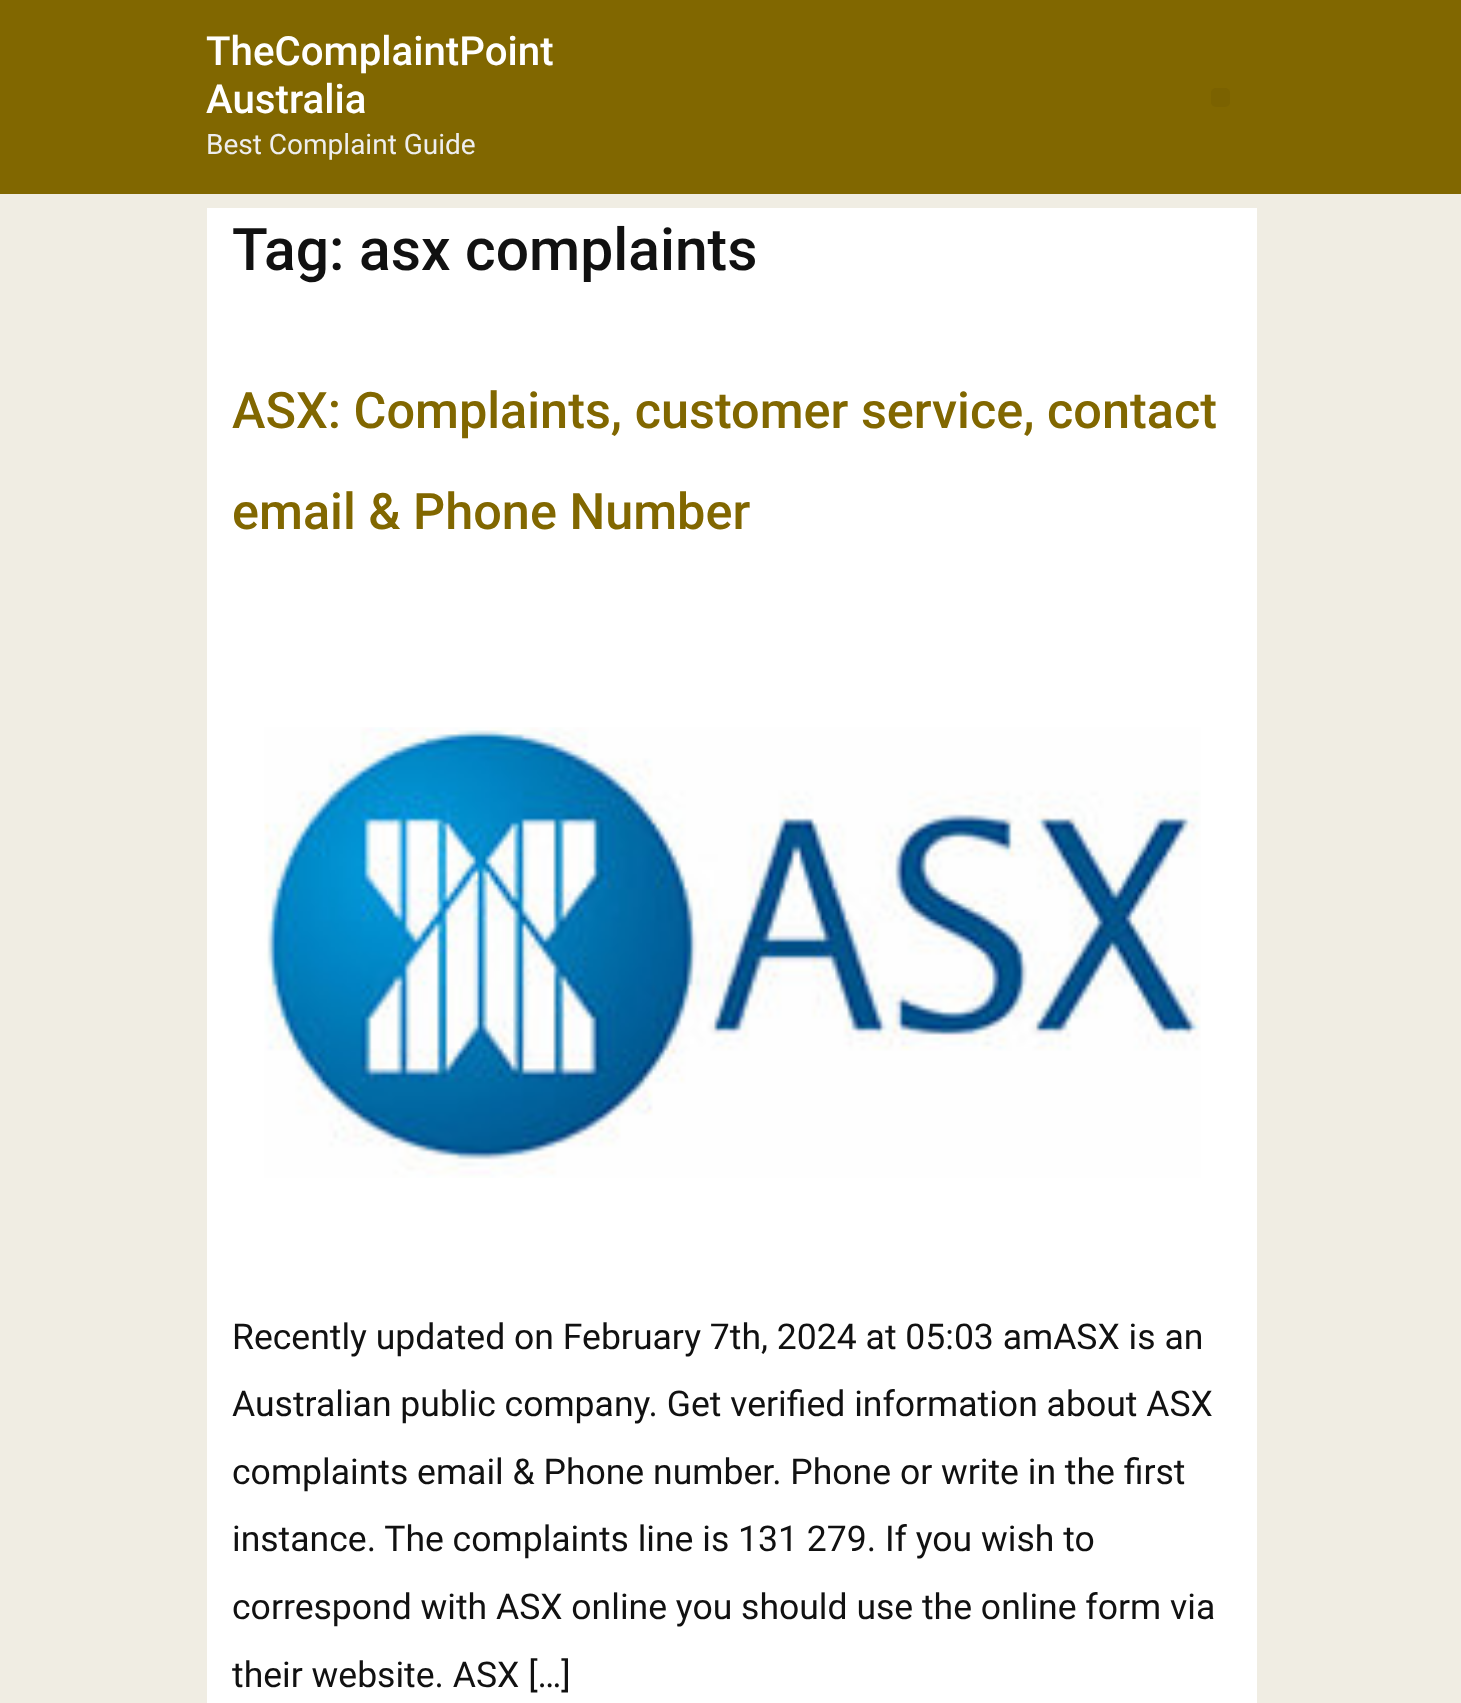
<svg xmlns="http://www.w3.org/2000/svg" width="1461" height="1703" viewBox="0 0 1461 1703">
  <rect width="100%" height="100%" fill="#f0ede3"/>
  <path d="M0 0h1461v194H0z" fill="#816700"/>
  <rect x="1211" y="88" width="19" height="19" rx="5" fill="#7b6200"/>
  <path d="M207 208h1050v1495H207z" fill="#fff"/>
  <image x="264" y="727" width="937" height="451" href="img/1.png"/>
  <g font-family="Roboto" font-size="40.25" font-weight="500" fill="#fff">
    <text x="206" y="65">TheComplaintPoint</text>
    <text x="206" y="113">Australia</text>
  </g>
  <text x="206" y="154" font-family="Roboto" font-size="28" fill="#eee">Best Complaint Guide</text>
  <text x="232" y="270" font-family="Roboto" font-size="58.75" font-weight="500" fill="#111">Tag: asx complaints</text>
  <g font-family="Roboto" font-size="50.4" font-weight="500" fill="#816700">
    <text x="232" y="428">ASX: Complaints, customer service, contact</text>
    <text x="232" y="529">email &amp; Phone Number</text>
  </g>
  <g font-family="Roboto" font-size="35.55" fill="#111">
    <text x="232" y="1349">Recently updated on February 7th, 2024 at 05:03 amASX is an</text>
    <text x="232" y="1416">Australian public company. Get verified information about ASX</text>
    <text x="232" y="1484">complaints email &amp; Phone number. Phone or write in the first</text>
    <text x="232" y="1551">instance. The complaints line is 131 279. If you wish to</text>
    <text x="232" y="1619">correspond with ASX online you should use the online form via</text>
    <text x="232" y="1687">their website. ASX […]</text>
  </g>
</svg>
